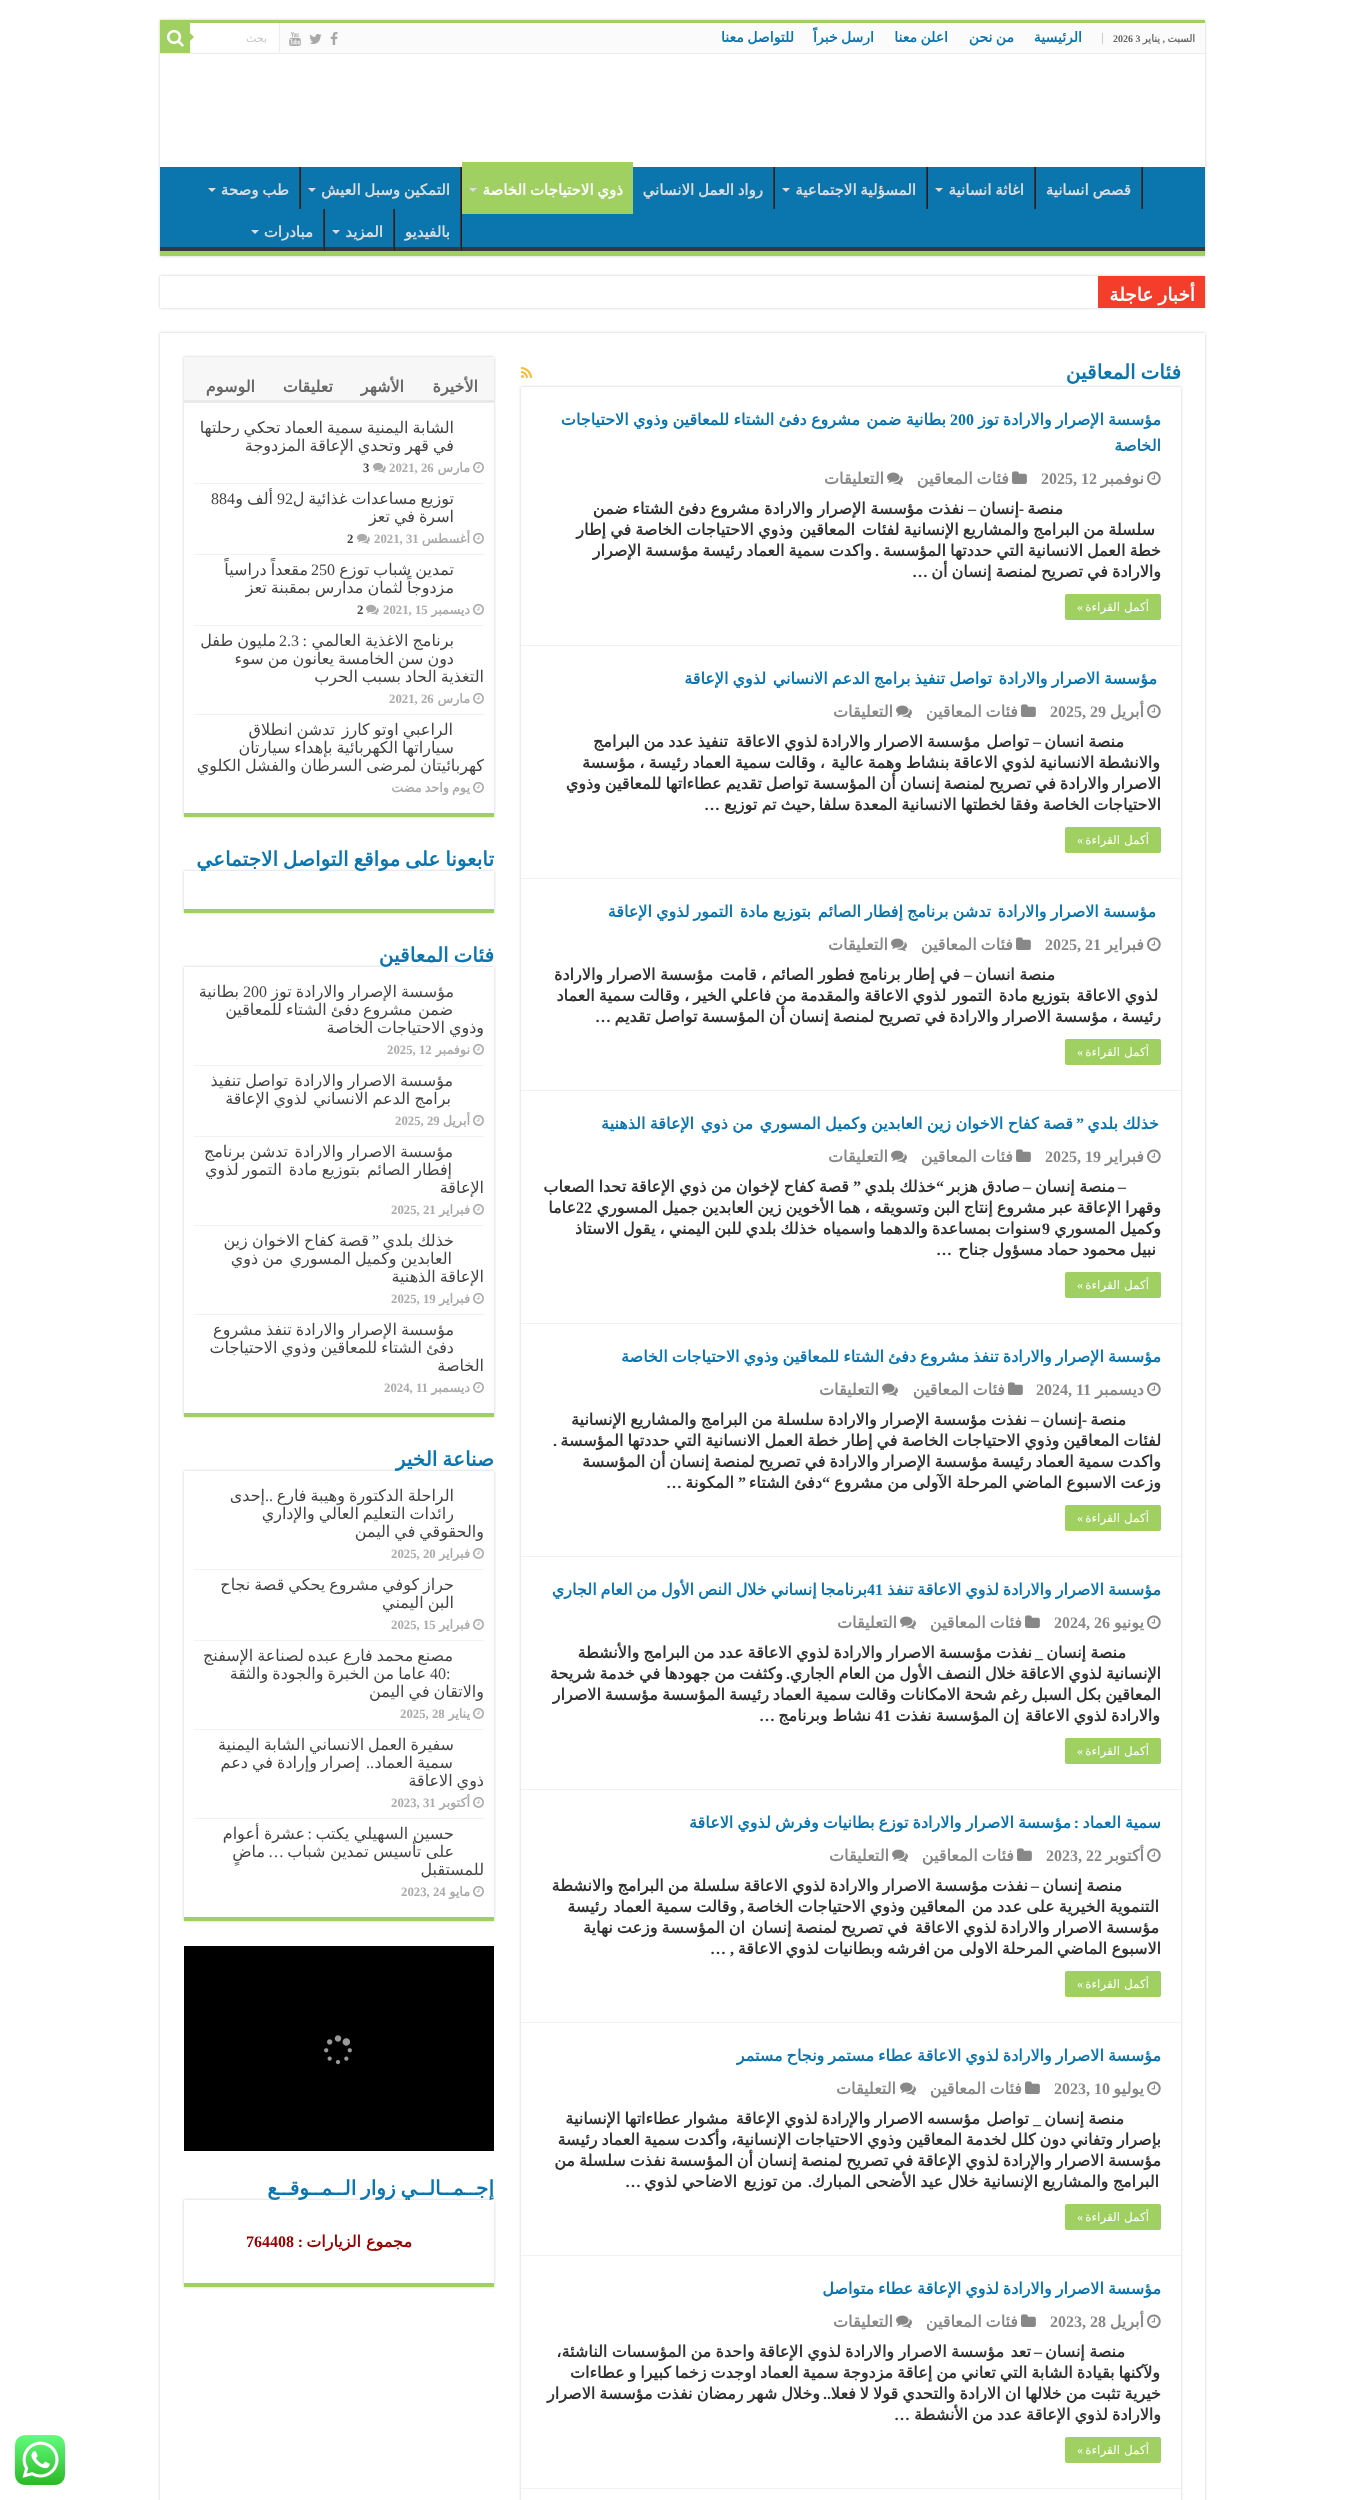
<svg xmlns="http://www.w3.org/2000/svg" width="1365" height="2500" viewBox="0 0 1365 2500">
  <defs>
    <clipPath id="clip1"><path d="M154 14H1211V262H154ZM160 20H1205V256H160Z" clip-rule="evenodd"/></clipPath>
    <clipPath id="clip2"><path d="M160 167h1045v84H160z"/></clipPath>
    <clipPath id="clip3"><path d="M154 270H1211V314H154ZM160 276H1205V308H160Z" clip-rule="evenodd"/></clipPath>
    <clipPath id="clip4"><path d="M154 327H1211V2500H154ZM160 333H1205V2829H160Z" clip-rule="evenodd"/></clipPath>
    <clipPath id="clip5"><path d="M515 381H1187V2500H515ZM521 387H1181V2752H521Z" clip-rule="evenodd"/></clipPath>
    <clipPath id="clip6"><path d="M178 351H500V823H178ZM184 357H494V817H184Z" clip-rule="evenodd"/></clipPath>
    <clipPath id="clip7"><path d="M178 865H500V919H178ZM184 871H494V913H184Z" clip-rule="evenodd"/></clipPath>
    <clipPath id="clip8"><path d="M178 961H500V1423H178ZM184 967H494V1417H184Z" clip-rule="evenodd"/></clipPath>
    <clipPath id="clip9"><path d="M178 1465H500V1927H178ZM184 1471H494V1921H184Z" clip-rule="evenodd"/></clipPath>
    <clipPath id="clip10"><path d="M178 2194H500V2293H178ZM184 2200H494V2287H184Z" clip-rule="evenodd"/></clipPath>
  </defs>
  <rect width="100%" height="100%" fill="#fff"/>
  <g clip-path="url(#clip1)">
    <path d="M160 20h1045v236H160z" fill="#cacaca" filter="blur(1.5px)"/>
  </g>
  <path d="M160 20h1045v3H160z" fill="#a0d062"/>
  <path d="M190 23h1015v30H190z" fill="#fbfbfb"/>
  <path d="M160 53h1045v1H160z" fill="#ececec"/>
  <path d="M1102 33h1v11H1102z" fill="#ccc"/>
  <image x="330" y="32" width="8" height="13" href="img/1.png"/>
  <image x="309" y="34" width="13" height="10" href="img/2.png"/>
  <image x="289" y="32" width="12" height="14" href="img/3.png"/>
  <path d="M190 23h89v29H190z" fill="#fff"/>
  <path d="M279 23h1v29H279z" fill="#ececec"/>
  <path d="M160 23h30v30H160z" fill="#a0d062"/>
  <image x="167" y="29" width="17" height="18" href="img/4.png"/>
  <path d="M190 41V33L194 37Z" fill="#a0d062"/>
  <path d="M160 167h1045v80H160z" fill="#0b75ae"/>
  <g clip-path="url(#clip2)">
    <path d="M61 68H1304V350H61ZM159 161H1204C1205 161 1205 161 1205 162V246C1205 247 1205 247 1204 247H159C158 247 158 247 158 246V162C158 161 158 161 159 161Z" fill="#393939" fill-rule="evenodd"/>
  </g>
  <path d="M160 251h1045v5H160z" fill="#a0d062"/>
  <path d="M1142 167h1v42H1142z" fill="#222"/>
  <path d="M1141 167h1v42H1141z" fill="#383838"/>
  <path d="M1035 167h1v42H1035z" fill="#222"/>
  <path d="M1034 167h1v42H1034z" fill="#383838"/>
  <path d="M935 188H943L939 192Z" fill="#ddd"/>
  <path d="M927 167h1v42H927z" fill="#222"/>
  <path d="M926 167h1v42H926z" fill="#383838"/>
  <path d="M782 188H790L786 192Z" fill="#ddd"/>
  <path d="M774 167h1v42H774z" fill="#222"/>
  <path d="M773 167h1v42H773z" fill="#383838"/>
  <path d="M462 162h171v52H462z" fill="#a0d062"/>
  <path d="M469 188H477L473 192Z" fill="#ddd"/>
  <path d="M461 167h1v84H461z" fill="#222"/>
  <path d="M460 167h1v84H460z" fill="#383838"/>
  <path d="M308 188H316L312 192Z" fill="#ddd"/>
  <path d="M300 167h1v42H300z" fill="#222"/>
  <path d="M299 167h1v42H299z" fill="#383838"/>
  <path d="M208 188H216L212 192Z" fill="#ddd"/>
  <path d="M394 209h1v42H394z" fill="#222"/>
  <path d="M393 209h1v42H393z" fill="#383838"/>
  <path d="M332 230H340L336 234Z" fill="#ddd"/>
  <path d="M324 209h1v42H324z" fill="#222"/>
  <path d="M323 209h1v42H323z" fill="#383838"/>
  <path d="M251 230H259L255 234Z" fill="#ddd"/>
  <g clip-path="url(#clip3)">
    <path d="M160 276h1045v32H160z" fill="#cacaca" filter="blur(1.5px)"/>
  </g>
  <path d="M1098 276h107v32H1098z" fill="#f43d2a"/>
  <g clip-path="url(#clip4)">
    <path d="M160 333h1045v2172H160z" fill="#cacaca" filter="blur(1.5px)"/>
  </g>
  <image x="521" y="367" width="11" height="11" href="img/5.png"/>
  <g clip-path="url(#clip5)">
    <path d="M521 387h660v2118H521z" fill="#cacaca" filter="blur(1.5px)"/>
  </g>
  <path d="M521 645h660v1H521z" fill="#f2f2f2"/>
  <image x="1147" y="471" width="14" height="15" href="img/6.png"/>
  <image x="1012" y="471" width="15" height="13" href="img/7.png"/>
  <image x="887" y="472" width="16" height="14" href="img/8.png"/>
  <rect x="1065" y="594" width="96" height="26" rx="2" fill="#a0d062"/>
  <path d="M521 878h660v1H521z" fill="#f2f2f2"/>
  <image x="1147" y="704" width="14" height="15" href="img/6.png"/>
  <image x="1021" y="704" width="15" height="13" href="img/7.png"/>
  <image x="896" y="705" width="16" height="14" href="img/8.png"/>
  <rect x="1065" y="827" width="96" height="26" rx="2" fill="#a0d062"/>
  <path d="M521 1090h660v1H521z" fill="#f2f2f2"/>
  <image x="1147" y="937" width="14" height="15" href="img/6.png"/>
  <image x="1016" y="937" width="15" height="13" href="img/7.png"/>
  <image x="891" y="938" width="16" height="14" href="img/8.png"/>
  <rect x="1065" y="1039" width="96" height="26" rx="2" fill="#a0d062"/>
  <path d="M521 1323h660v1H521z" fill="#f2f2f2"/>
  <image x="1147" y="1149" width="14" height="15" href="img/6.png"/>
  <image x="1016" y="1149" width="15" height="13" href="img/7.png"/>
  <image x="891" y="1150" width="16" height="14" href="img/8.png"/>
  <rect x="1065" y="1272" width="96" height="26" rx="2" fill="#a0d062"/>
  <path d="M521 1556h660v1H521z" fill="#f2f2f2"/>
  <image x="1147" y="1382" width="14" height="15" href="img/6.png"/>
  <image x="1008" y="1382" width="15" height="13" href="img/7.png"/>
  <image x="882" y="1383" width="16" height="14" href="img/8.png"/>
  <rect x="1065" y="1505" width="96" height="26" rx="2" fill="#a0d062"/>
  <path d="M521 1789h660v1H521z" fill="#f2f2f2"/>
  <image x="1147" y="1615" width="14" height="15" href="img/6.png"/>
  <image x="1025" y="1615" width="15" height="13" href="img/7.png"/>
  <image x="900" y="1616" width="16" height="14" href="img/8.png"/>
  <rect x="1065" y="1738" width="96" height="26" rx="2" fill="#a0d062"/>
  <path d="M521 2022h660v1H521z" fill="#f2f2f2"/>
  <image x="1147" y="1848" width="14" height="15" href="img/6.png"/>
  <image x="1017" y="1848" width="15" height="13" href="img/7.png"/>
  <image x="892" y="1849" width="16" height="14" href="img/8.png"/>
  <rect x="1065" y="1971" width="96" height="26" rx="2" fill="#a0d062"/>
  <path d="M521 2255h660v1H521z" fill="#f2f2f2"/>
  <image x="1147" y="2081" width="14" height="15" href="img/6.png"/>
  <image x="1025" y="2081" width="15" height="13" href="img/7.png"/>
  <image x="900" y="2082" width="16" height="14" href="img/8.png"/>
  <rect x="1065" y="2204" width="96" height="26" rx="2" fill="#a0d062"/>
  <path d="M521 2488h660v1H521z" fill="#f2f2f2"/>
  <image x="1147" y="2314" width="14" height="15" href="img/6.png"/>
  <image x="1021" y="2314" width="15" height="13" href="img/7.png"/>
  <image x="896" y="2315" width="16" height="14" href="img/8.png"/>
  <rect x="1065" y="2437" width="96" height="26" rx="2" fill="#a0d062"/>
  <g clip-path="url(#clip6)">
    <path d="M184 357h310v460H184z" fill="#cacaca" filter="blur(1.5px)"/>
  </g>
  <path d="M184 813h310v4H184z" fill="#a0d062"/>
  <path d="M184 357h310v43H184z" fill="#f7f7f7"/>
  <path d="M184 400h310v3H184z" fill="#eaeaea"/>
  <path d="M194 483h290v1H194z" fill="#f2f2f2"/>
  <image x="473" y="462" width="11" height="11" href="img/9.png"/>
  <image x="373" y="462" width="13" height="11" href="img/10.png"/>
  <path d="M194 554h290v1H194z" fill="#f2f2f2"/>
  <image x="473" y="533" width="11" height="11" href="img/9.png"/>
  <image x="357" y="533" width="13" height="11" href="img/10.png"/>
  <path d="M194 625h290v1H194z" fill="#f2f2f2"/>
  <image x="473" y="604" width="11" height="11" href="img/9.png"/>
  <image x="366" y="604" width="13" height="11" href="img/10.png"/>
  <path d="M194 714h290v1H194z" fill="#f2f2f2"/>
  <image x="473" y="693" width="11" height="11" href="img/9.png"/>
  <image x="473" y="782" width="11" height="11" href="img/9.png"/>
  <g clip-path="url(#clip7)">
    <path d="M184 871h310v42H184z" fill="#cacaca" filter="blur(1.5px)"/>
  </g>
  <path d="M184 909h310v4H184z" fill="#a0d062"/>
  <g clip-path="url(#clip8)">
    <path d="M184 967h310v450H184z" fill="#cacaca" filter="blur(1.5px)"/>
  </g>
  <path d="M184 1413h310v4H184z" fill="#a0d062"/>
  <path d="M194 1065h290v1H194z" fill="#f2f2f2"/>
  <image x="473" y="1044" width="11" height="11" href="img/9.png"/>
  <path d="M194 1136h290v1H194z" fill="#f2f2f2"/>
  <image x="473" y="1115" width="11" height="11" href="img/9.png"/>
  <path d="M194 1225h290v1H194z" fill="#f2f2f2"/>
  <image x="473" y="1204" width="11" height="11" href="img/9.png"/>
  <path d="M194 1314h290v1H194z" fill="#f2f2f2"/>
  <image x="473" y="1293" width="11" height="11" href="img/9.png"/>
  <image x="473" y="1382" width="11" height="11" href="img/9.png"/>
  <g clip-path="url(#clip9)">
    <path d="M184 1471h310v450H184z" fill="#cacaca" filter="blur(1.5px)"/>
  </g>
  <path d="M184 1917h310v4H184z" fill="#a0d062"/>
  <path d="M194 1569h290v1H194z" fill="#f2f2f2"/>
  <image x="473" y="1548" width="11" height="11" href="img/9.png"/>
  <path d="M194 1640h290v1H194z" fill="#f2f2f2"/>
  <image x="473" y="1619" width="11" height="11" href="img/9.png"/>
  <path d="M194 1729h290v1H194z" fill="#f2f2f2"/>
  <image x="473" y="1708" width="11" height="11" href="img/9.png"/>
  <path d="M194 1818h290v1H194z" fill="#f2f2f2"/>
  <image x="473" y="1797" width="11" height="11" href="img/9.png"/>
  <image x="473" y="1886" width="11" height="11" href="img/9.png"/>
  <path d="M184 1946h310v205H184z" fill="#000"/>
  <image x="324" y="2035" width="28" height="30" href="img/11.png"/>
  <g clip-path="url(#clip10)">
    <path d="M184 2200h310v87H184z" fill="#cacaca" filter="blur(1.5px)"/>
  </g>
  <path d="M184 2283h310v4H184z" fill="#a0d062"/>
  <image x="15" y="2435" width="50" height="50" href="img/12.png"/>
  <text x="1195" y="42" font-family="DejaVu Sans" font-size="10" font-weight="bold" direction="rtl" fill="#666">السبت</text>
  <text x="1165" y="42" font-family="Liberation Serif" font-size="10" font-weight="bold" direction="rtl" fill="#666">,</text>
  <text x="1160" y="42" font-family="DejaVu Sans" font-size="10" font-weight="bold" direction="rtl" fill="#666">يناير</text>
  <text x="1113" y="42" font-family="Liberation Serif" font-size="10" font-weight="bold" fill="#666">2026 3</text>
  <g font-family="DejaVu Sans" font-size="14" font-weight="bold" direction="rtl" fill="#0a75ae">
    <text x="1082" y="42">الرئيسية</text>
    <text x="1014" y="42" word-spacing="-1">من نحن</text>
    <text x="948" y="42" word-spacing="-1">اعلن معنا</text>
    <text x="874" y="42" word-spacing="-1">ارسل خبراً</text>
    <text x="794" y="42" word-spacing="-1">للتواصل معنا</text>
  </g>
  <text x="267" y="42" font-family="DejaVu Sans" font-size="11" direction="rtl" fill="#c5c5c5">بحث</text>
  <g font-family="DejaVu Sans" font-size="15" font-weight="bold" direction="rtl" fill="#ddd">
    <text x="1131" y="195" word-spacing="-1">قصص انسانية</text>
    <text x="1024" y="195" word-spacing="-1">اغاثة انسانية</text>
    <text x="916" y="195" word-spacing="-1">المسؤلية الاجتماعية</text>
    <text x="763" y="195" word-spacing="-1">رواد العمل الانساني</text>
  </g>
  <text x="623" y="195" word-spacing="-1" font-family="DejaVu Sans" font-size="15" font-weight="bold" direction="rtl" fill="#fff">ذوي الاحتياجات الخاصة</text>
  <g font-family="DejaVu Sans" font-size="15" font-weight="bold" direction="rtl" fill="#ddd">
    <text x="450" y="195" word-spacing="-1">التمكين وسبل العيش</text>
    <text x="289" y="195" word-spacing="-1">طب وصحة</text>
    <text x="450" y="237">بالفيديو</text>
    <text x="383" y="237">المزيد</text>
    <text x="313" y="237">مبادرات</text>
  </g>
  <text x="1195" y="301" word-spacing="-1" font-family="DejaVu Sans" font-size="18.5" font-weight="bold" direction="rtl" fill="#fff">أخبار عاجلة</text>
  <text x="1181" y="379" word-spacing="-1.5" font-family="DejaVu Sans" font-size="20" font-weight="bold" direction="rtl" fill="#0a75ae">فئات المعاقين</text>
  <text x="1161" y="425" word-spacing="-1.1" font-family="DejaVu Sans" font-size="16" font-weight="bold" direction="rtl" fill="#0a75ae">مؤسسة الإصرار والارادة توز</text>
  <text x="950" y="425" font-family="Liberation Serif" font-size="16" font-weight="bold" fill="#0a75ae">200</text>
  <g font-family="DejaVu Sans" font-size="16" font-weight="bold" direction="rtl" fill="#0a75ae">
    <text x="946" y="425" word-spacing="-0.75">بطانية ضمن</text>
    <text x="860" y="425" word-spacing="-0.75">مشروع دفئ الشتاء للمعاقين وذوي الاحتياجات</text>
    <text x="1161" y="451">الخاصة</text>
  </g>
  <text x="1144" y="484" font-family="DejaVu Sans" font-size="16" font-weight="bold" direction="rtl" fill="#888">نوفمبر</text>
  <text x="1041" y="484" font-family="Liberation Serif" font-size="16" font-weight="bold" fill="#888">2025, 12</text>
  <g font-family="DejaVu Sans" font-size="16" font-weight="bold" direction="rtl" fill="#888">
    <text x="1009" y="484" word-spacing="-1.1">فئات المعاقين</text>
    <text x="884" y="484">التعليقات</text>
  </g>
  <text x="1063" y="514" font-family="DejaVu Sans" font-size="16" font-weight="bold" direction="rtl" fill="#333">منصة</text>
  <text x="1024" y="514" font-family="Liberation Serif" font-size="16" font-weight="bold" direction="rtl" fill="#333">-</text>
  <text x="1019" y="514" font-family="DejaVu Sans" font-size="16" font-weight="bold" direction="rtl" fill="#333">إنسان</text>
  <text x="976" y="514" font-family="Liberation Serif" font-size="16" font-weight="bold" direction="rtl" fill="#333">–</text>
  <g font-family="DejaVu Sans" font-size="16" font-weight="bold" direction="rtl" fill="#333">
    <text x="964" y="514" word-spacing="-0.5">نفذت مؤسسة الإصرار والارادة مشروع دفئ الشتاء ضمن</text>
    <text x="1155" y="535" word-spacing="-1">سلسلة من البرامج والمشاريع الإنسانية لفئات</text>
    <text x="855" y="535">المعاقين</text>
    <text x="793" y="535" word-spacing="-1">وذوي الاحتياجات الخاصة في إطار</text>
    <text x="1161" y="556" word-spacing="-1">خطة العمل الانسانية التي حددتها المؤسسة</text>
  </g>
  <text x="879" y="556" font-family="Liberation Serif" font-size="16" font-weight="bold" direction="rtl" fill="#333">.</text>
  <g font-family="DejaVu Sans" font-size="16" font-weight="bold" direction="rtl" fill="#333">
    <text x="872" y="556" word-spacing="-1">واكدت سمية العماد رئيسة مؤسسة الإصرار</text>
    <text x="1161" y="577" word-spacing="-1">والارادة في تصريح لمنصة إنسان أن</text>
  </g>
  <text x="928" y="577" font-family="Liberation Serif" font-size="16" font-weight="bold" direction="rtl" fill="#333">…</text>
  <text x="1149" y="611" font-family="DejaVu Sans" font-size="12" direction="rtl" fill="#fff">أكمل القراءة</text>
  <text x="1083" y="611" font-family="Liberation Serif" font-size="12" direction="rtl" fill="#fff">»</text>
  <g font-family="DejaVu Sans" font-size="16" font-weight="bold" direction="rtl" fill="#0a75ae">
    <text x="1157" y="684" word-spacing="-1">مؤسسة الاصرار والارادة</text>
    <text x="992" y="684" word-spacing="-1">تواصل تنفيذ برامج الدعم الانساني</text>
    <text x="766" y="684" word-spacing="-1">لذوي الإعاقة</text>
  </g>
  <text x="1144" y="717" font-family="DejaVu Sans" font-size="16" font-weight="bold" direction="rtl" fill="#888">أبريل</text>
  <text x="1050" y="717" font-family="Liberation Serif" font-size="16" font-weight="bold" fill="#888">2025, 29</text>
  <g font-family="DejaVu Sans" font-size="16" font-weight="bold" direction="rtl" fill="#888">
    <text x="1018" y="717" word-spacing="-1.1">فئات المعاقين</text>
    <text x="893" y="717">التعليقات</text>
  </g>
  <text x="1124" y="747" word-spacing="-1" font-family="DejaVu Sans" font-size="16" font-weight="bold" direction="rtl" fill="#333">منصة انسان</text>
  <text x="1041" y="747" font-family="Liberation Serif" font-size="16" font-weight="bold" direction="rtl" fill="#333">–</text>
  <g font-family="DejaVu Sans" font-size="16" font-weight="bold" direction="rtl" fill="#333">
    <text x="1029" y="747">تواصل</text>
    <text x="980" y="747" word-spacing="-1">مؤسسة الاصرار والارادة لذوي الاعاقة</text>
    <text x="728" y="747" word-spacing="-1">تنفيذ عدد من البرامج</text>
    <text x="1160" y="768" word-spacing="-1">والانشطة الانسانية لذوي الاعاقة بنشاط وهمة عالية</text>
    <text x="825" y="768" word-spacing="-1">، وقالت سمية العماد رئيسة ، مؤسسة</text>
    <text x="1161" y="789" word-spacing="-1.1">الاصرار والارادة في تصريح لمنصة إنسان أن المؤسسة تواصل تقديم عطاءاتها للمعاقين وذوي</text>
    <text x="1161" y="810" word-spacing="-1">الاحتياجات الخاصة وفقا لخطتها الانسانية المعدة سلفا</text>
  </g>
  <text x="815" y="810" font-family="Liberation Serif" font-size="16" font-weight="bold" direction="rtl" fill="#333">,</text>
  <text x="811" y="810" word-spacing="-1" font-family="DejaVu Sans" font-size="16" font-weight="bold" direction="rtl" fill="#333">حيث تم توزيع</text>
  <text x="720" y="810" font-family="Liberation Serif" font-size="16" font-weight="bold" direction="rtl" fill="#333">…</text>
  <text x="1149" y="844" font-family="DejaVu Sans" font-size="12" direction="rtl" fill="#fff">أكمل القراءة</text>
  <text x="1083" y="844" font-family="Liberation Serif" font-size="12" direction="rtl" fill="#fff">»</text>
  <g font-family="DejaVu Sans" font-size="16" font-weight="bold" direction="rtl" fill="#0a75ae">
    <text x="1156" y="917" word-spacing="-1">مؤسسة الاصرار والارادة</text>
    <text x="991" y="917" word-spacing="-1">تدشن برنامج إفطار الصائم</text>
    <text x="811" y="917" word-spacing="-1">بتوزيع مادة</text>
    <text x="733" y="917" word-spacing="-1">التمور لذوي الإعاقة</text>
  </g>
  <text x="1144" y="950" font-family="DejaVu Sans" font-size="16" font-weight="bold" direction="rtl" fill="#888">فبراير</text>
  <text x="1045" y="950" font-family="Liberation Serif" font-size="16" font-weight="bold" fill="#888">2025, 21</text>
  <g font-family="DejaVu Sans" font-size="16" font-weight="bold" direction="rtl" fill="#888">
    <text x="1013" y="950" word-spacing="-1.1">فئات المعاقين</text>
    <text x="888" y="950">التعليقات</text>
  </g>
  <text x="1055" y="980" word-spacing="-0.75" font-family="DejaVu Sans" font-size="16" font-weight="bold" direction="rtl" fill="#333">منصة انسان</text>
  <text x="972" y="980" font-family="Liberation Serif" font-size="16" font-weight="bold" direction="rtl" fill="#333">–</text>
  <g font-family="DejaVu Sans" font-size="16" font-weight="bold" direction="rtl" fill="#333">
    <text x="960" y="980" word-spacing="-0.75">في إطار برنامج فطور الصائم ، قامت</text>
    <text x="713" y="980" word-spacing="-0.75">مؤسسة الاصرار والارادة</text>
    <text x="1158" y="1001" word-spacing="-1">لذوي الاعاقة</text>
    <text x="1070" y="1001" word-spacing="-1">بتوزيع مادة</text>
    <text x="992" y="1001">التمور</text>
    <text x="946" y="1001" word-spacing="-1">لذوي الاعاقة والمقدمة من فاعلي الخير ، وقالت سمية العماد</text>
    <text x="1161" y="1022" word-spacing="-1">رئيسة ، مؤسسة الاصرار والارادة في تصريح لمنصة إنسان أن المؤسسة تواصل تقديم</text>
  </g>
  <text x="611" y="1022" font-family="Liberation Serif" font-size="16" font-weight="bold" direction="rtl" fill="#333">…</text>
  <text x="1149" y="1056" font-family="DejaVu Sans" font-size="12" direction="rtl" fill="#fff">أكمل القراءة</text>
  <text x="1083" y="1056" font-family="Liberation Serif" font-size="12" direction="rtl" fill="#fff">»</text>
  <text x="1159" y="1129" word-spacing="-0.75" font-family="DejaVu Sans" font-size="16" font-weight="bold" direction="rtl" fill="#0a75ae">خذلك بلدي</text>
  <text x="1084" y="1129" font-family="Liberation Serif" font-size="16" font-weight="bold" direction="rtl" fill="#0a75ae">”</text>
  <g font-family="DejaVu Sans" font-size="16" font-weight="bold" direction="rtl" fill="#0a75ae">
    <text x="1073" y="1129" word-spacing="-0.75">قصة كفاح الاخوان زين العابدين وكميل المسوري</text>
    <text x="753" y="1129" word-spacing="-0.75">من ذوي</text>
    <text x="694" y="1129" word-spacing="-0.75">الإعاقة الذهنية</text>
  </g>
  <text x="1144" y="1162" font-family="DejaVu Sans" font-size="16" font-weight="bold" direction="rtl" fill="#888">فبراير</text>
  <text x="1045" y="1162" font-family="Liberation Serif" font-size="16" font-weight="bold" fill="#888">2025, 19</text>
  <g font-family="DejaVu Sans" font-size="16" font-weight="bold" direction="rtl" fill="#888">
    <text x="1013" y="1162" word-spacing="-1.1">فئات المعاقين</text>
    <text x="888" y="1162">التعليقات</text>
  </g>
  <g font-family="DejaVu Sans" font-size="16" font-weight="bold" direction="rtl" fill="#333">
    <text x="1115" y="1192" word-spacing="-0.75">منصة إنسان</text>
    <text x="1020" y="1192" word-spacing="-0.75">صادق هزبر</text>
  </g>
  <text x="944" y="1192" font-family="Liberation Serif" font-size="16" font-weight="bold" direction="rtl" fill="#333">“</text>
  <text x="936" y="1192" word-spacing="-0.75" font-family="DejaVu Sans" font-size="16" font-weight="bold" direction="rtl" fill="#333">خذلك بلدي</text>
  <text x="861" y="1192" font-family="Liberation Serif" font-size="16" font-weight="bold" direction="rtl" fill="#333">”</text>
  <text x="849" y="1192" word-spacing="-0.75" font-family="DejaVu Sans" font-size="16" font-weight="bold" direction="rtl" fill="#333">قصة كفاح لإخوان من ذوي الإعاقة تحدا الصعاب</text>
  <g font-family="Liberation Serif" font-size="16" font-weight="bold" direction="rtl" fill="#333">
    <text x="1126" y="1192">–</text>
    <text x="1031" y="1192">–</text>
  </g>
  <text x="1161" y="1213" word-spacing="-1.1" font-family="DejaVu Sans" font-size="16" font-weight="bold" direction="rtl" fill="#333">وقهرا الإعاقة عبر مشروع إنتاج البن وتسويقه ، هما الأخوين زين العابدين جميل المسوري</text>
  <text x="576" y="1213" font-family="Liberation Serif" font-size="16" font-weight="bold" fill="#333">22</text>
  <g font-family="DejaVu Sans" font-size="16" font-weight="bold" direction="rtl" fill="#333">
    <text x="576" y="1213">عاما</text>
    <text x="1161" y="1234" word-spacing="-1.1">وكميل المسوري</text>
  </g>
  <text x="1042" y="1234" font-family="Liberation Serif" font-size="16" font-weight="bold" fill="#333">9</text>
  <g font-family="DejaVu Sans" font-size="16" font-weight="bold" direction="rtl" fill="#333">
    <text x="1041" y="1234" word-spacing="-1">سنوات بمساعدة والدهما واسمياه</text>
    <text x="817" y="1234" word-spacing="-1">خذلك بلدي للبن اليمني ، يقول الاستاذ</text>
    <text x="1156" y="1255" word-spacing="-1">نبيل محمود حماد مسؤول جناح</text>
  </g>
  <text x="952" y="1255" font-family="Liberation Serif" font-size="16" font-weight="bold" direction="rtl" fill="#333">…</text>
  <text x="1149" y="1289" font-family="DejaVu Sans" font-size="12" direction="rtl" fill="#fff">أكمل القراءة</text>
  <text x="1083" y="1289" font-family="Liberation Serif" font-size="12" direction="rtl" fill="#fff">»</text>
  <text x="1161" y="1362" word-spacing="-1.1" font-family="DejaVu Sans" font-size="16" font-weight="bold" direction="rtl" fill="#0a75ae">مؤسسة الإصرار والارادة تنفذ مشروع دفئ الشتاء للمعاقين وذوي الاحتياجات الخاصة</text>
  <text x="1144" y="1395" font-family="DejaVu Sans" font-size="16" font-weight="bold" direction="rtl" fill="#888">ديسمبر</text>
  <text x="1036" y="1395" font-family="Liberation Serif" font-size="16" font-weight="bold" fill="#888">2024, 11</text>
  <g font-family="DejaVu Sans" font-size="16" font-weight="bold" direction="rtl" fill="#888">
    <text x="1005" y="1395" word-spacing="-1.1">فئات المعاقين</text>
    <text x="879" y="1395">التعليقات</text>
  </g>
  <text x="1126" y="1425" font-family="DejaVu Sans" font-size="16" font-weight="bold" direction="rtl" fill="#333">منصة</text>
  <text x="1087" y="1425" font-family="Liberation Serif" font-size="16" font-weight="bold" direction="rtl" fill="#333">-</text>
  <text x="1082" y="1425" font-family="DejaVu Sans" font-size="16" font-weight="bold" direction="rtl" fill="#333">إنسان</text>
  <text x="1039" y="1425" font-family="Liberation Serif" font-size="16" font-weight="bold" direction="rtl" fill="#333">–</text>
  <g font-family="DejaVu Sans" font-size="16" font-weight="bold" direction="rtl" fill="#333">
    <text x="1027" y="1425" word-spacing="-0.75">نفذت مؤسسة الإصرار والارادة سلسلة من البرامج والمشاريع الإنسانية</text>
    <text x="1161" y="1446" word-spacing="-1">لفئات المعاقين وذوي الاحتياجات الخاصة في إطار خطة العمل الانسانية التي حددتها المؤسسة</text>
  </g>
  <text x="557" y="1446" font-family="Liberation Serif" font-size="16" font-weight="bold" direction="rtl" fill="#333">.</text>
  <g font-family="DejaVu Sans" font-size="16" font-weight="bold" direction="rtl" fill="#333">
    <text x="1161" y="1467" word-spacing="-1.1">واكدت سمية العماد رئيسة مؤسسة الإصرار والارادة في تصريح لمنصة إنسان أن المؤسسة</text>
    <text x="1161" y="1488" word-spacing="-0.75">وزعت الاسبوع الماضي المرحلة الآولى من مشروع</text>
  </g>
  <text x="830" y="1488" font-family="Liberation Serif" font-size="16" font-weight="bold" direction="rtl" fill="#333">“</text>
  <text x="822" y="1488" word-spacing="-0.75" font-family="DejaVu Sans" font-size="16" font-weight="bold" direction="rtl" fill="#333">دفئ الشتاء</text>
  <text x="746" y="1488" font-family="Liberation Serif" font-size="16" font-weight="bold" direction="rtl" fill="#333">”</text>
  <text x="734" y="1488" font-family="DejaVu Sans" font-size="16" font-weight="bold" direction="rtl" fill="#333">المكونة</text>
  <text x="682" y="1488" font-family="Liberation Serif" font-size="16" font-weight="bold" direction="rtl" fill="#333">…</text>
  <text x="1149" y="1522" font-family="DejaVu Sans" font-size="12" direction="rtl" fill="#fff">أكمل القراءة</text>
  <text x="1083" y="1522" font-family="Liberation Serif" font-size="12" direction="rtl" fill="#fff">»</text>
  <text x="1161" y="1595" word-spacing="-1.1" font-family="DejaVu Sans" font-size="16" font-weight="bold" direction="rtl" fill="#0a75ae">مؤسسة الاصرار والارادة لذوي الاعاقة تنفذ</text>
  <text x="867" y="1595" font-family="Liberation Serif" font-size="16" font-weight="bold" fill="#0a75ae">41</text>
  <text x="867" y="1595" word-spacing="-1.1" font-family="DejaVu Sans" font-size="16" font-weight="bold" direction="rtl" fill="#0a75ae">برنامجا إنساني خلال النص الأول من العام الجاري</text>
  <text x="1144" y="1628" font-family="DejaVu Sans" font-size="16" font-weight="bold" direction="rtl" fill="#888">يونيو</text>
  <text x="1054" y="1628" font-family="Liberation Serif" font-size="16" font-weight="bold" fill="#888">2024, 26</text>
  <g font-family="DejaVu Sans" font-size="16" font-weight="bold" direction="rtl" fill="#888">
    <text x="1022" y="1628" word-spacing="-1.1">فئات المعاقين</text>
    <text x="897" y="1628">التعليقات</text>
  </g>
  <text x="1126" y="1658" word-spacing="-1" font-family="DejaVu Sans" font-size="16" font-weight="bold" direction="rtl" fill="#333">منصة إنسان</text>
  <text x="1043" y="1658" font-family="Liberation Serif" font-size="16" font-weight="bold" direction="rtl" fill="#333">_</text>
  <g font-family="DejaVu Sans" font-size="16" font-weight="bold" direction="rtl" fill="#333">
    <text x="1032" y="1658" word-spacing="-1">نفذت مؤسسة الاصرار والارادة لذوي الاعاقة عدد من البرامج والأنشطة</text>
    <text x="1161" y="1679" word-spacing="-1">الإنسانية لذوي الاعاقة خلال النصف الأول من العام الجاري</text>
  </g>
  <text x="790" y="1679" font-family="Liberation Serif" font-size="16" font-weight="bold" direction="rtl" fill="#333">.</text>
  <g font-family="DejaVu Sans" font-size="16" font-weight="bold" direction="rtl" fill="#333">
    <text x="783" y="1679" word-spacing="-1">وكثفت من جهودها في خدمة شريحة</text>
    <text x="1161" y="1700" word-spacing="-1.1">المعاقين بكل السبل رغم شحة الامكانات وقالت سمية العماد رئيسة المؤسسة مؤسسة الاصرار</text>
    <text x="1160" y="1721" word-spacing="-1">والارادة لذوي الاعاقة</text>
    <text x="1019" y="1721" word-spacing="-1">إن المؤسسة نفذت</text>
  </g>
  <text x="875" y="1721" font-family="Liberation Serif" font-size="16" font-weight="bold" fill="#333">41</text>
  <text x="871" y="1721" font-family="DejaVu Sans" font-size="16" font-weight="bold" direction="rtl" fill="#333">نشاط وبرنامج</text>
  <text x="775" y="1721" font-family="Liberation Serif" font-size="16" font-weight="bold" direction="rtl" fill="#333">…</text>
  <text x="1149" y="1755" font-family="DejaVu Sans" font-size="12" direction="rtl" fill="#fff">أكمل القراءة</text>
  <text x="1083" y="1755" font-family="Liberation Serif" font-size="12" direction="rtl" fill="#fff">»</text>
  <text x="1161" y="1828" word-spacing="-1" font-family="DejaVu Sans" font-size="16" font-weight="bold" direction="rtl" fill="#0a75ae">سمية العماد</text>
  <text x="1079" y="1828" font-family="Liberation Serif" font-size="16" font-weight="bold" direction="rtl" fill="#0a75ae">:</text>
  <text x="1071" y="1828" word-spacing="-1" font-family="DejaVu Sans" font-size="16" font-weight="bold" direction="rtl" fill="#0a75ae">مؤسسة الاصرار والارادة توزع بطانيات وفرش لذوي الاعاقة</text>
  <text x="1144" y="1861" font-family="DejaVu Sans" font-size="16" font-weight="bold" direction="rtl" fill="#888">أكتوبر</text>
  <text x="1046" y="1861" font-family="Liberation Serif" font-size="16" font-weight="bold" fill="#888">2023, 22</text>
  <g font-family="DejaVu Sans" font-size="16" font-weight="bold" direction="rtl" fill="#888">
    <text x="1014" y="1861" word-spacing="-1.1">فئات المعاقين</text>
    <text x="889" y="1861">التعليقات</text>
  </g>
  <text x="1122" y="1891" word-spacing="-1" font-family="DejaVu Sans" font-size="16" font-weight="bold" direction="rtl" fill="#333">منصة إنسان</text>
  <text x="1039" y="1891" font-family="Liberation Serif" font-size="16" font-weight="bold" direction="rtl" fill="#333">–</text>
  <g font-family="DejaVu Sans" font-size="16" font-weight="bold" direction="rtl" fill="#333">
    <text x="1028" y="1891" word-spacing="-1">نفذت مؤسسة الاصرار والارادة لذوي الاعاقة سلسلة من البرامج والانشطة</text>
    <text x="1159" y="1912" word-spacing="-0.75">التنموية الخيرية على عدد من</text>
    <text x="965" y="1912" word-spacing="-0.75">المعاقين وذوي الاحتياجات الخاصة</text>
  </g>
  <text x="744" y="1912" font-family="Liberation Serif" font-size="16" font-weight="bold" direction="rtl" fill="#333">,</text>
  <g font-family="DejaVu Sans" font-size="16" font-weight="bold" direction="rtl" fill="#333">
    <text x="737" y="1912" word-spacing="-0.75">وقالت سمية العماد</text>
    <text x="607" y="1912">رئيسة</text>
    <text x="1159" y="1933" word-spacing="-1">مؤسسة الاصرار والارادة لذوي الاعاقة</text>
    <text x="908" y="1933" word-spacing="-1">في تصريح لمنصة إنسان</text>
    <text x="745" y="1933" word-spacing="-1">ان المؤسسة وزعت نهاية</text>
    <text x="1161" y="1954">الاسبوع</text>
    <text x="1107" y="1954">الماضي</text>
    <text x="1053" y="1954">المرحلة</text>
    <text x="998" y="1954">الاولى</text>
    <text x="954" y="1954">من</text>
    <text x="930" y="1954">افرشه</text>
    <text x="883" y="1954">وبطانيات</text>
    <text x="819" y="1954">لذوي</text>
    <text x="782" y="1954">الاعاقة</text>
  </g>
  <text x="734" y="1954" font-family="Liberation Serif" font-size="16" font-weight="bold" direction="rtl" fill="#333">, …</text>
  <text x="1149" y="1988" font-family="DejaVu Sans" font-size="12" direction="rtl" fill="#fff">أكمل القراءة</text>
  <text x="1083" y="1988" font-family="Liberation Serif" font-size="12" direction="rtl" fill="#fff">»</text>
  <text x="1161" y="2061" word-spacing="-1.1" font-family="DejaVu Sans" font-size="16" font-weight="bold" direction="rtl" fill="#0a75ae">مؤسسة الاصرار والارادة لذوي الاعاقة عطاء مستمر ونجاح مستمر</text>
  <text x="1144" y="2094" font-family="DejaVu Sans" font-size="16" font-weight="bold" direction="rtl" fill="#888">يوليو</text>
  <text x="1054" y="2094" font-family="Liberation Serif" font-size="16" font-weight="bold" fill="#888">2023, 10</text>
  <g font-family="DejaVu Sans" font-size="16" font-weight="bold" direction="rtl" fill="#888">
    <text x="1022" y="2094" word-spacing="-1.1">فئات المعاقين</text>
    <text x="896" y="2094">التعليقات</text>
  </g>
  <text x="1124" y="2124" word-spacing="-1" font-family="DejaVu Sans" font-size="16" font-weight="bold" direction="rtl" fill="#333">منصة إنسان</text>
  <text x="1041" y="2124" font-family="Liberation Serif" font-size="16" font-weight="bold" direction="rtl" fill="#333">_</text>
  <g font-family="DejaVu Sans" font-size="16" font-weight="bold" direction="rtl" fill="#333">
    <text x="1029" y="2124">تواصل</text>
    <text x="980" y="2124" word-spacing="-1">مؤسسه الاصرار والإرادة لذوي الإعاقة</text>
    <text x="728" y="2124" word-spacing="-1">مشوار عطاءاتها الإنسانية</text>
    <text x="1161" y="2145" word-spacing="-1.1">بإصرار وتفاني دون كلل لخدمة المعاقين وذوي الاحتياجات الإنسانية، وأكدت سمية العماد رئيسة</text>
    <text x="1161" y="2166" word-spacing="-1.1">مؤسسة الاصرار والإرادة لذوي الإعاقة في تصريح لمنصة إنسان أن المؤسسة نفذت سلسلة من</text>
    <text x="1159" y="2187" word-spacing="-0.75">البرامج والمشاريع الإنسانية خلال عيد الأضحى المبارك</text>
  </g>
  <text x="812" y="2187" font-family="Liberation Serif" font-size="16" font-weight="bold" direction="rtl" fill="#333">.</text>
  <g font-family="DejaVu Sans" font-size="16" font-weight="bold" direction="rtl" fill="#333">
    <text x="802" y="2187" word-spacing="-0.75">من توزيع</text>
    <text x="737" y="2187" word-spacing="-0.75">الاضاحي لذوي</text>
  </g>
  <text x="641" y="2187" font-family="Liberation Serif" font-size="16" font-weight="bold" direction="rtl" fill="#333">…</text>
  <text x="1149" y="2221" font-family="DejaVu Sans" font-size="12" direction="rtl" fill="#fff">أكمل القراءة</text>
  <text x="1083" y="2221" font-family="Liberation Serif" font-size="12" direction="rtl" fill="#fff">»</text>
  <text x="1161" y="2294" word-spacing="-1.1" font-family="DejaVu Sans" font-size="16" font-weight="bold" direction="rtl" fill="#0a75ae">مؤسسة الاصرار والارادة لذوي الإعاقة عطاء متواصل</text>
  <text x="1144" y="2327" font-family="DejaVu Sans" font-size="16" font-weight="bold" direction="rtl" fill="#888">أبريل</text>
  <text x="1050" y="2327" font-family="Liberation Serif" font-size="16" font-weight="bold" fill="#888">2023, 28</text>
  <g font-family="DejaVu Sans" font-size="16" font-weight="bold" direction="rtl" fill="#888">
    <text x="1018" y="2327" word-spacing="-1.1">فئات المعاقين</text>
    <text x="893" y="2327">التعليقات</text>
  </g>
  <text x="1125" y="2357" word-spacing="-0.75" font-family="DejaVu Sans" font-size="16" font-weight="bold" direction="rtl" fill="#333">منصة إنسان</text>
  <text x="1042" y="2357" font-family="Liberation Serif" font-size="16" font-weight="bold" direction="rtl" fill="#333">–</text>
  <g font-family="DejaVu Sans" font-size="16" font-weight="bold" direction="rtl" fill="#333">
    <text x="1031" y="2357">تعد</text>
    <text x="1004" y="2357" word-spacing="-0.75">مؤسسة الاصرار والارادة لذوي الإعاقة واحدة من المؤسسات الناشئة،</text>
    <text x="1160" y="2378" word-spacing="-1.1">ولآكنها بقيادة الشابة التي تعاني من إعاقة مزدوجة سمية العماد اوجدت زخما كبيرا و عطاءات</text>
    <text x="1161" y="2399" word-spacing="-1">خيرية تثبت من خلالها ان الارادة والتحدي قولا لا فعلا</text>
  </g>
  <text x="831" y="2399" font-family="Liberation Serif" font-size="16" font-weight="bold" direction="rtl" fill="#333">..</text>
  <g font-family="DejaVu Sans" font-size="16" font-weight="bold" direction="rtl" fill="#333">
    <text x="820" y="2399" word-spacing="-1">وخلال شهر رمضان نفذت مؤسسة الاصرار</text>
    <text x="1161" y="2420" word-spacing="-1">والارادة لذوي الإعاقة عدد من الأنشطة</text>
  </g>
  <text x="910" y="2420" font-family="Liberation Serif" font-size="16" font-weight="bold" direction="rtl" fill="#333">…</text>
  <text x="1149" y="2454" font-family="DejaVu Sans" font-size="12" direction="rtl" fill="#fff">أكمل القراءة</text>
  <text x="1083" y="2454" font-family="Liberation Serif" font-size="12" direction="rtl" fill="#fff">»</text>
  <g font-family="DejaVu Sans" font-size="16" font-weight="bold" direction="rtl" fill="#666">
    <text x="478" y="392">الأخيرة</text>
    <text x="404" y="392">الأشهر</text>
    <text x="333" y="392">تعليقات</text>
    <text x="255" y="392">الوسوم</text>
  </g>
  <g font-family="DejaVu Sans" font-size="16" direction="rtl" fill="#444">
    <text x="454" y="433" word-spacing="-1.1">الشابة اليمنية سمية العماد تحكي رحلتها</text>
    <text x="454" y="451" word-spacing="-1.1">في قهر وتحدي الإعاقة المزدوجة</text>
  </g>
  <text x="470" y="472" font-family="DejaVu Sans" font-size="12.75" font-weight="bold" direction="rtl" fill="#aaa">مارس</text>
  <text x="389" y="472" font-family="Liberation Serif" font-size="12.75" font-weight="bold" fill="#aaa">2021, 26</text>
  <text x="363" y="472" font-family="Liberation Serif" font-size="12.75" font-weight="bold" fill="#444">3</text>
  <text x="454" y="504" word-spacing="-1.1" font-family="DejaVu Sans" font-size="16" direction="rtl" fill="#444">توزيع مساعدات غذائية ل</text>
  <g font-family="Liberation Serif" font-size="16" fill="#444">
    <text x="277" y="504">92</text>
    <text x="211" y="504">884</text>
  </g>
  <g font-family="DejaVu Sans" font-size="16" direction="rtl" fill="#444">
    <text x="273" y="504" word-spacing="-1">ألف و</text>
    <text x="454" y="522" word-spacing="-1.1">اسرة في تعز</text>
  </g>
  <text x="470" y="543" font-family="DejaVu Sans" font-size="12.75" font-weight="bold" direction="rtl" fill="#aaa">أغسطس</text>
  <text x="374" y="543" font-family="Liberation Serif" font-size="12.75" font-weight="bold" fill="#aaa">2021, 31</text>
  <text x="347" y="543" font-family="Liberation Serif" font-size="12.75" font-weight="bold" fill="#444">2</text>
  <text x="454" y="575" word-spacing="-1.1" font-family="DejaVu Sans" font-size="16" direction="rtl" fill="#444">تمدين شباب توزع</text>
  <text x="311" y="575" font-family="Liberation Serif" font-size="16" fill="#444">250</text>
  <g font-family="DejaVu Sans" font-size="16" direction="rtl" fill="#444">
    <text x="308" y="575" word-spacing="-1">مقعداً دراسياً</text>
    <text x="454" y="593" word-spacing="-1.1">مزدوجاً لثمان مدارس بمقبنة تعز</text>
  </g>
  <text x="470" y="614" font-family="DejaVu Sans" font-size="12.75" font-weight="bold" direction="rtl" fill="#aaa">ديسمبر</text>
  <text x="383" y="614" font-family="Liberation Serif" font-size="12.75" font-weight="bold" fill="#aaa">2021, 15</text>
  <text x="357" y="614" font-family="Liberation Serif" font-size="12.75" font-weight="bold" fill="#444">2</text>
  <text x="454" y="646" word-spacing="-1" font-family="DejaVu Sans" font-size="16" direction="rtl" fill="#444">برنامج الاغذية العالمي</text>
  <text x="307" y="646" font-family="Liberation Serif" font-size="16" direction="rtl" fill="#444">:</text>
  <text x="279" y="646" font-family="Liberation Serif" font-size="16" fill="#444">2.3</text>
  <g font-family="DejaVu Sans" font-size="16" direction="rtl" fill="#444">
    <text x="276" y="646" word-spacing="-1">مليون طفل</text>
    <text x="454" y="664" word-spacing="-1.1">دون سن الخامسة يعانون من سوء</text>
    <text x="484" y="682" word-spacing="-1.1">التغذية الحاد بسبب الحرب</text>
  </g>
  <text x="470" y="703" font-family="DejaVu Sans" font-size="12.75" font-weight="bold" direction="rtl" fill="#aaa">مارس</text>
  <text x="389" y="703" font-family="Liberation Serif" font-size="12.75" font-weight="bold" fill="#aaa">2021, 26</text>
  <g font-family="DejaVu Sans" font-size="16" direction="rtl" fill="#444">
    <text x="453" y="735" word-spacing="-1">الراعبي اوتو كارز</text>
    <text x="335" y="735" word-spacing="-1">تدشن انطلاق</text>
    <text x="454" y="753" word-spacing="-1.1">سياراتها الكهربائية بإهداء سيارتان</text>
    <text x="484" y="771" word-spacing="-1.1">كهربائيتان لمرضى السرطان والفشل الكلوي</text>
  </g>
  <text x="470" y="792" word-spacing="-1" font-family="DejaVu Sans" font-size="12.75" font-weight="bold" direction="rtl" fill="#aaa">يوم واحد مضت</text>
  <g font-family="DejaVu Sans" font-size="20" font-weight="bold" direction="rtl" fill="#0a75ae">
    <text x="494" y="866" word-spacing="-1.5">تابعونا على مواقع التواصل الاجتماعي</text>
    <text x="494" y="962" word-spacing="-1.5">فئات المعاقين</text>
  </g>
  <text x="454" y="997" word-spacing="-1.1" font-family="DejaVu Sans" font-size="16" direction="rtl" fill="#444">مؤسسة الإصرار والارادة توز</text>
  <text x="243" y="997" font-family="Liberation Serif" font-size="16" fill="#444">200</text>
  <g font-family="DejaVu Sans" font-size="16" direction="rtl" fill="#444">
    <text x="239" y="997">بطانية</text>
    <text x="453" y="1015">ضمن</text>
    <text x="412" y="1015" word-spacing="-1">مشروع دفئ الشتاء للمعاقين</text>
    <text x="484" y="1033" word-spacing="-1.1">وذوي الاحتياجات الخاصة</text>
  </g>
  <text x="470" y="1054" font-family="DejaVu Sans" font-size="12.75" font-weight="bold" direction="rtl" fill="#aaa">نوفمبر</text>
  <text x="387" y="1054" font-family="Liberation Serif" font-size="12.75" font-weight="bold" fill="#aaa">2025, 12</text>
  <g font-family="DejaVu Sans" font-size="16" direction="rtl" fill="#444">
    <text x="453" y="1086" word-spacing="-1">مؤسسة الاصرار والارادة</text>
    <text x="288" y="1086" word-spacing="-1">تواصل تنفيذ</text>
    <text x="451" y="1104" word-spacing="-1">برامج الدعم الانساني</text>
    <text x="307" y="1104" word-spacing="-1">لذوي الإعاقة</text>
  </g>
  <text x="470" y="1125" font-family="DejaVu Sans" font-size="12.75" font-weight="bold" direction="rtl" fill="#aaa">أبريل</text>
  <text x="395" y="1125" font-family="Liberation Serif" font-size="12.75" font-weight="bold" fill="#aaa">2025, 29</text>
  <g font-family="DejaVu Sans" font-size="16" direction="rtl" fill="#444">
    <text x="453" y="1157" word-spacing="-1">مؤسسة الاصرار والارادة</text>
    <text x="288" y="1157" word-spacing="-1">تدشن برنامج</text>
    <text x="452" y="1175" word-spacing="-1">إفطار الصائم</text>
    <text x="360" y="1175" word-spacing="-1">بتوزيع مادة</text>
    <text x="282" y="1175" word-spacing="-1">التمور لذوي</text>
    <text x="484" y="1193">الإعاقة</text>
  </g>
  <text x="470" y="1214" font-family="DejaVu Sans" font-size="12.75" font-weight="bold" direction="rtl" fill="#aaa">فبراير</text>
  <text x="391" y="1214" font-family="Liberation Serif" font-size="12.75" font-weight="bold" fill="#aaa">2025, 21</text>
  <text x="454" y="1246" word-spacing="-1" font-family="DejaVu Sans" font-size="16" direction="rtl" fill="#444">خذلك بلدي</text>
  <text x="379" y="1246" font-family="Liberation Serif" font-size="16" direction="rtl" fill="#444">”</text>
  <g font-family="DejaVu Sans" font-size="16" direction="rtl" fill="#444">
    <text x="369" y="1246" word-spacing="-1">قصة كفاح الاخوان زين</text>
    <text x="452" y="1264" word-spacing="-1">العابدين وكميل المسوري</text>
    <text x="283" y="1264" word-spacing="-1">من ذوي</text>
    <text x="484" y="1282" word-spacing="-1.1">الإعاقة الذهنية</text>
  </g>
  <text x="470" y="1303" font-family="DejaVu Sans" font-size="12.75" font-weight="bold" direction="rtl" fill="#aaa">فبراير</text>
  <text x="391" y="1303" font-family="Liberation Serif" font-size="12.75" font-weight="bold" fill="#aaa">2025, 19</text>
  <g font-family="DejaVu Sans" font-size="16" direction="rtl" fill="#444">
    <text x="454" y="1335" word-spacing="-1.1">مؤسسة الإصرار والارادة تنفذ مشروع</text>
    <text x="454" y="1353" word-spacing="-1.1">دفئ الشتاء للمعاقين وذوي الاحتياجات</text>
    <text x="484" y="1371">الخاصة</text>
  </g>
  <text x="470" y="1392" font-family="DejaVu Sans" font-size="12.75" font-weight="bold" direction="rtl" fill="#aaa">ديسمبر</text>
  <text x="384" y="1392" font-family="Liberation Serif" font-size="12.75" font-weight="bold" fill="#aaa">2024, 11</text>
  <text x="494" y="1466" word-spacing="-1.5" font-family="DejaVu Sans" font-size="20" font-weight="bold" direction="rtl" fill="#0a75ae">صناعة الخير</text>
  <text x="454" y="1501" word-spacing="-1" font-family="DejaVu Sans" font-size="16" direction="rtl" fill="#444">الراحلة الدكتورة وهيبة فارع</text>
  <text x="273" y="1501" font-family="Liberation Serif" font-size="16" direction="rtl" fill="#444">..</text>
  <g font-family="DejaVu Sans" font-size="16" direction="rtl" fill="#444">
    <text x="265" y="1501">إحدى</text>
    <text x="454" y="1519" word-spacing="-1.1">رائدات التعليم العالي والإداري</text>
    <text x="484" y="1537" word-spacing="-1.1">والحقوقي في اليمن</text>
  </g>
  <text x="470" y="1558" font-family="DejaVu Sans" font-size="12.75" font-weight="bold" direction="rtl" fill="#aaa">فبراير</text>
  <text x="391" y="1558" font-family="Liberation Serif" font-size="12.75" font-weight="bold" fill="#aaa">2025, 20</text>
  <g font-family="DejaVu Sans" font-size="16" direction="rtl" fill="#444">
    <text x="454" y="1590" word-spacing="-1.1">حراز كوفي مشروع يحكي قصة نجاح</text>
    <text x="454" y="1608" word-spacing="-1.1">البن اليمني</text>
  </g>
  <text x="470" y="1629" font-family="DejaVu Sans" font-size="12.75" font-weight="bold" direction="rtl" fill="#aaa">فبراير</text>
  <text x="391" y="1629" font-family="Liberation Serif" font-size="12.75" font-weight="bold" fill="#aaa">2025, 15</text>
  <text x="453" y="1661" word-spacing="-1.1" font-family="DejaVu Sans" font-size="16" direction="rtl" fill="#444">مصنع محمد فارع عبده لصناعة الإسفنج</text>
  <text x="430" y="1679" font-family="Liberation Serif" font-size="16" fill="#444">40:</text>
  <g font-family="DejaVu Sans" font-size="16" direction="rtl" fill="#444">
    <text x="426" y="1679" word-spacing="-1">عاما من الخبرة والجودة والثقة</text>
    <text x="484" y="1697" word-spacing="-1.1">والاتقان في اليمن</text>
  </g>
  <text x="470" y="1718" font-family="DejaVu Sans" font-size="12.75" font-weight="bold" direction="rtl" fill="#aaa">يناير</text>
  <text x="400" y="1718" font-family="Liberation Serif" font-size="12.75" font-weight="bold" fill="#aaa">2025, 28</text>
  <g font-family="DejaVu Sans" font-size="16" direction="rtl" fill="#444">
    <text x="454" y="1750" word-spacing="-1.1">سفيرة العمل الانساني الشابة اليمنية</text>
    <text x="453" y="1768" word-spacing="-1">سمية العماد</text>
  </g>
  <text x="374" y="1768" font-family="Liberation Serif" font-size="16" direction="rtl" fill="#444">..</text>
  <g font-family="DejaVu Sans" font-size="16" direction="rtl" fill="#444">
    <text x="360" y="1768" word-spacing="-1">إصرار وإرادة في دعم</text>
    <text x="484" y="1786" word-spacing="-1.1">ذوي الاعاقة</text>
  </g>
  <text x="470" y="1807" font-family="DejaVu Sans" font-size="12.75" font-weight="bold" direction="rtl" fill="#aaa">أكتوبر</text>
  <text x="391" y="1807" font-family="Liberation Serif" font-size="12.75" font-weight="bold" fill="#aaa">2023, 31</text>
  <text x="454" y="1839" word-spacing="-0.5" font-family="DejaVu Sans" font-size="16" direction="rtl" fill="#444">حسين السهيلي يكتب</text>
  <text x="312" y="1839" font-family="Liberation Serif" font-size="16" direction="rtl" fill="#444">:</text>
  <g font-family="DejaVu Sans" font-size="16" direction="rtl" fill="#444">
    <text x="305" y="1839" word-spacing="-0.5">عشرة أعوام</text>
    <text x="454" y="1857" word-spacing="-0.5">على تأسيس تمدين شباب</text>
  </g>
  <text x="284" y="1857" font-family="Liberation Serif" font-size="16" direction="rtl" fill="#444">…</text>
  <g font-family="DejaVu Sans" font-size="16" direction="rtl" fill="#444">
    <text x="265" y="1857">ماضٍ</text>
    <text x="484" y="1875">للمستقبل</text>
  </g>
  <text x="470" y="1896" font-family="DejaVu Sans" font-size="12.75" font-weight="bold" direction="rtl" fill="#aaa">مايو</text>
  <text x="401" y="1896" font-family="Liberation Serif" font-size="12.75" font-weight="bold" fill="#aaa">2023, 24</text>
  <text x="494" y="2195" word-spacing="-1.5" font-family="DejaVu Sans" font-size="20" font-weight="bold" direction="rtl" fill="#0a75ae">إجــمــالــي زوار الــمــوقــع</text>
  <text x="412" y="2247" font-family="DejaVu Sans" font-size="16" font-weight="bold" direction="rtl" fill="#900">مجموع الزيارات</text>
  <text x="303" y="2247" font-family="Liberation Serif" font-size="16" font-weight="bold" direction="rtl" fill="#900">:</text>
  <text x="246" y="2247" font-family="Liberation Serif" font-size="16" font-weight="bold" fill="#900">764408</text>
</svg>
